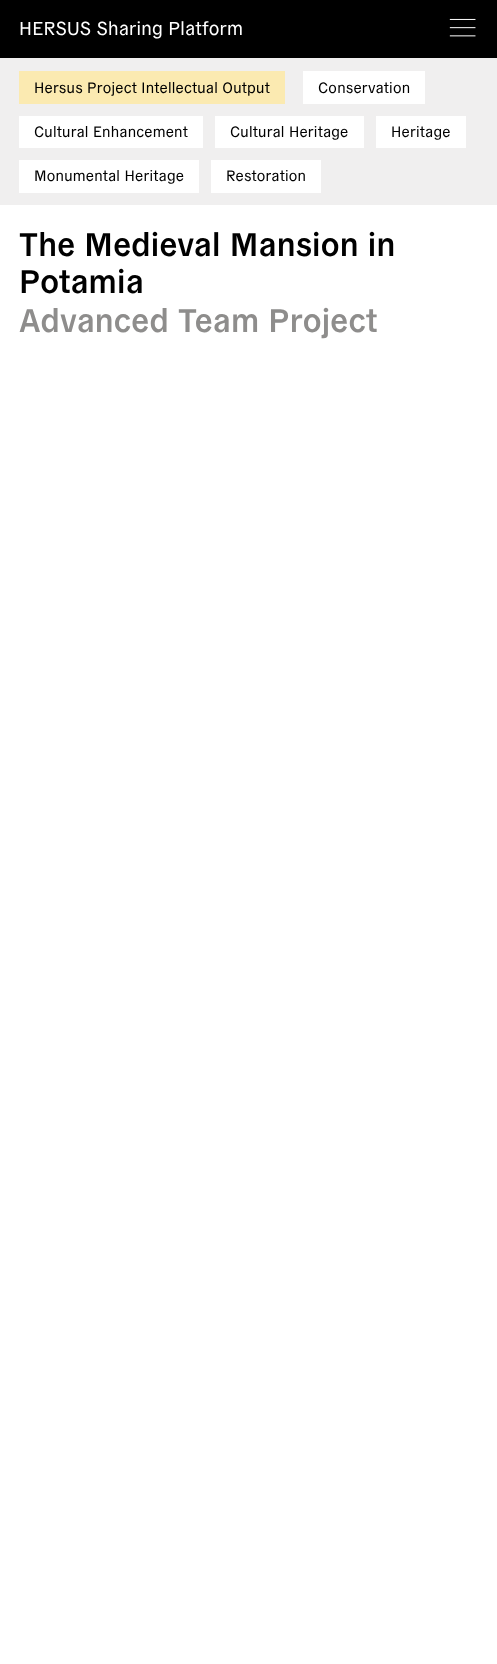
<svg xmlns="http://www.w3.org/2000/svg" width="497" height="1664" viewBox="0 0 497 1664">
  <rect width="100%" height="100%" fill="#fff"/>
  <path d="M0 0h497v58H0z" fill="#000"/>
  <image x="449" y="18" width="27" height="19" href="img/1.png"/>
  <path d="M0 58h497v147H0z" fill="#f0efef"/>
  <path d="M19 71h266v33H19z" fill="#fbeab1"/>
  <path d="M303 71h122v33H303z" fill="#fff"/>
  <path d="M19 116h184v32H19z" fill="#fff"/>
  <path d="M215 116h149v32H215z" fill="#fff"/>
  <path d="M376 116h90v32H376z" fill="#fff"/>
  <path d="M19 160h180v33H19z" fill="#fff"/>
  <path d="M211 160h110v33H211z" fill="#fff"/>
  <text x="19" y="35" font-family="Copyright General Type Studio" font-size="18.75" letter-spacing="0.25" fill="#fff">HERSUS Sharing Platform</text>
  <g font-family="Copyright General Type Studio" font-size="15" letter-spacing="0.25" fill="#000">
    <text x="34" y="93">Hersus Project Intellectual Output</text>
    <text x="318" y="93">Conservation</text>
    <text x="34" y="137">Cultural Enhancement</text>
    <text x="230" y="137">Cultural Heritage</text>
    <text x="391" y="137">Heritage</text>
    <text x="34" y="181">Monumental Heritage</text>
    <text x="226" y="181">Restoration</text>
  </g>
  <g font-family="Copyright General Type Studio" font-size="32.5" font-weight="600" letter-spacing="0.25" fill="#000">
    <text x="19" y="256">The Medieval Mansion in</text>
    <text x="19" y="293">Potamia</text>
  </g>
  <text x="19" y="332" font-family="Copyright General Type Studio" font-size="32.5" font-weight="600" letter-spacing="0.25" fill="#8e8d8c">Advanced Team Project</text>
</svg>
